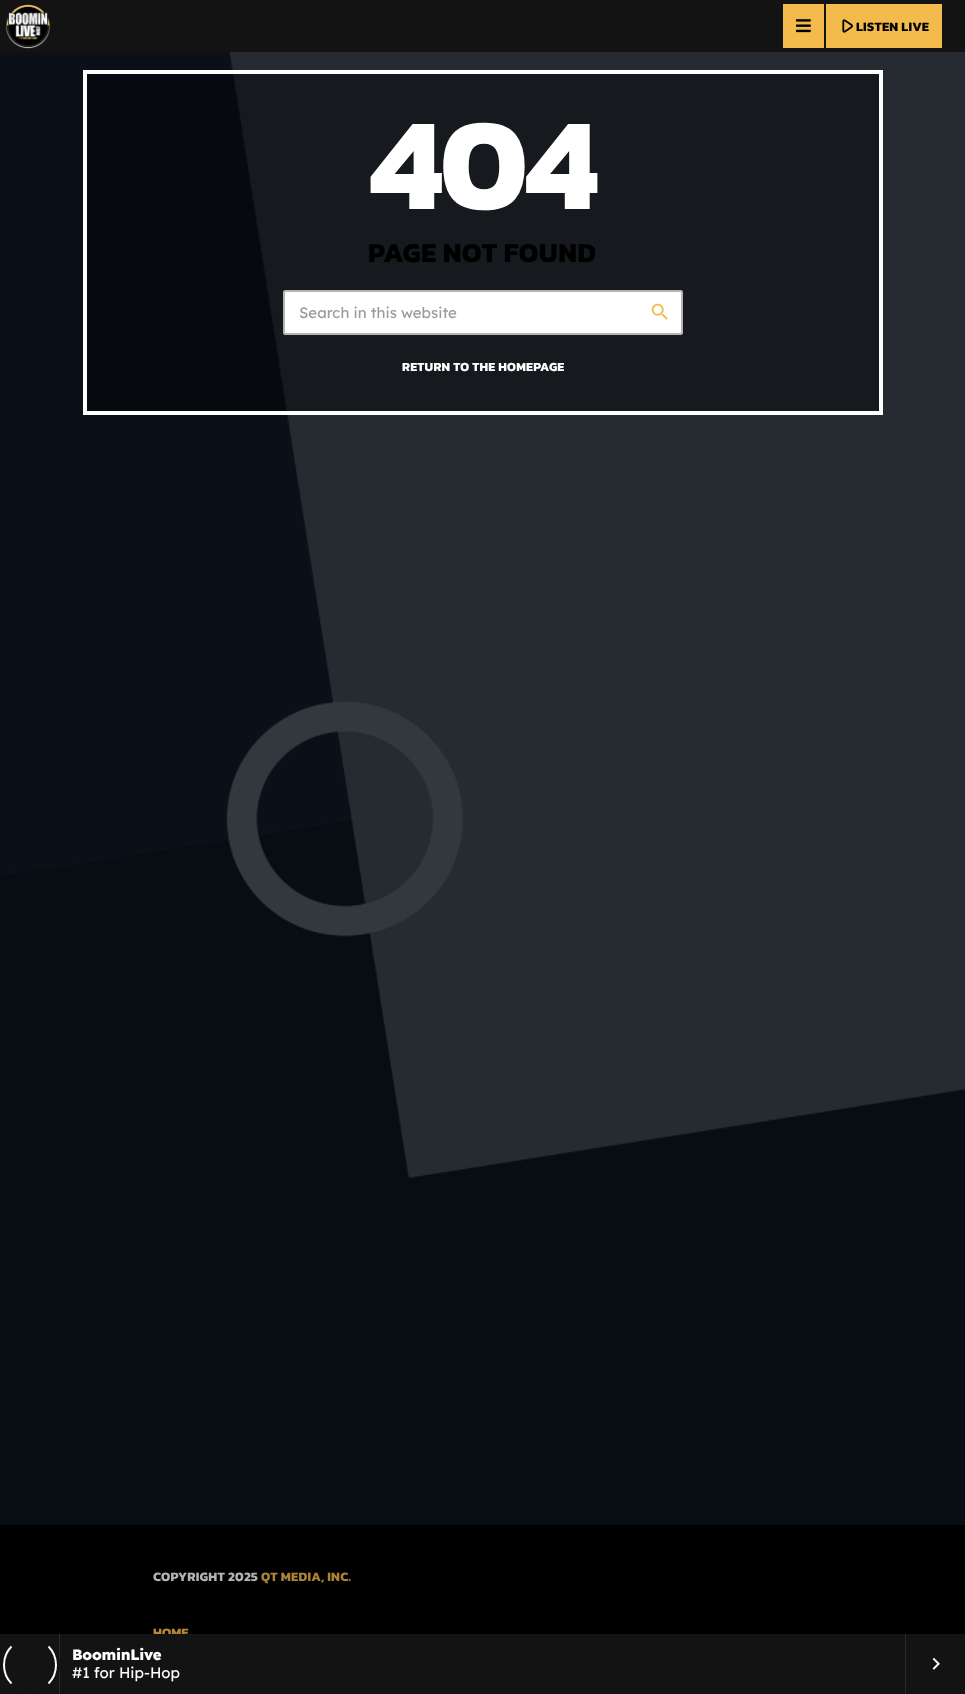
<svg xmlns="http://www.w3.org/2000/svg" width="965" height="1694" viewBox="0 0 965 1694">
  <rect width="100%" height="100%" fill="#fff"/>
  <path d="M0 0h965v52H0z" fill="#131313"/>
  <image x="6" y="4" width="45" height="45" href="img/1.png"/>
  <path d="M783 4h41v44H783z" fill="#f3bb4b"/>
  <image x="796" y="19" width="15" height="14" href="img/2.png"/>
  <path d="M826 4h116v44H826z" fill="#f3bb4b"/>
  <image x="842" y="19" width="11" height="14" href="img/3.png"/>
  <image x="0" y="52" width="965" height="1473" href="img/4.png"/>
  <path d="M85 72h796v341H85z" fill="#00000066" stroke="#fff" stroke-width="4"/>
  <rect x="283" y="290" width="400" height="45" rx="3" fill="#fff"/>
  <rect x="284" y="291" width="398" height="43" rx="2" fill="none" stroke="#969696b3" stroke-width="2"/>
  <image x="651" y="303" width="17" height="17" href="img/5.png"/>
  <path d="M0 1525h965v109H0z" fill="#000"/>
  <text x="856" y="31" font-family="Kanit" font-size="13" font-weight="bold" letter-spacing="0.25" fill="#000">LISTEN LIVE</text>
  <text x="370" y="209" font-family="Kanit" font-size="132" font-weight="bold" letter-spacing="-2.5" fill="#fff">404</text>
  <text x="368" y="262" font-family="Kanit" font-size="27.5" font-weight="bold" letter-spacing="0.5" fill="#000">PAGE NOT FOUND</text>
  <text x="299" y="318" font-family="Lexend Deca" font-size="15" fill="#9a9a9a">Search in this website</text>
  <text x="402" y="371" font-family="Kanit" font-size="12.5" font-weight="bold" letter-spacing="0.25" fill="#fff">RETURN TO THE HOMEPAGE</text>
  <text x="153" y="1581" font-family="Kanit" font-size="13" font-weight="bold" letter-spacing="0.25" fill="#b3b3b3">COPYRIGHT 2025</text>
  <text x="261" y="1581" font-family="Kanit" font-size="13" font-weight="bold" letter-spacing="0.25" fill="#aa8335">QT MEDIA, INC.</text>
  <text x="153" y="1637" font-family="Kanit" font-size="13" font-weight="bold" fill="#b18937">HOME</text>
  <path d="M0 1634h965v60H0z" fill="#131313"/>
  <path d="M59 1634h1v60H59z" fill="#2b2b2b"/>
  <circle cx="30" cy="1665" r="30" fill="#131313"/>
  <path d="M48.5 1646.5C58.5 1656.5 58.5 1673.5 48.5 1683.5M11.5 1683.5C1.5 1673.5 1.5 1656.5 11.5 1646.5" fill="none" stroke="#fff" stroke-width="2"/>
  <text x="72" y="1660" font-family="Lexend Deca" font-size="15" font-weight="800" letter-spacing="-0.25" fill="#fff">BoominLive</text>
  <text x="72" y="1678" font-family="Lexend Deca" font-size="15" fill="#fff">#1 for Hip-Hop</text>
  <path d="M905 1634h1v60H905z" fill="#2b2b2b"/>
  <image x="932" y="1657" width="8" height="13" href="img/6.png"/>
</svg>
